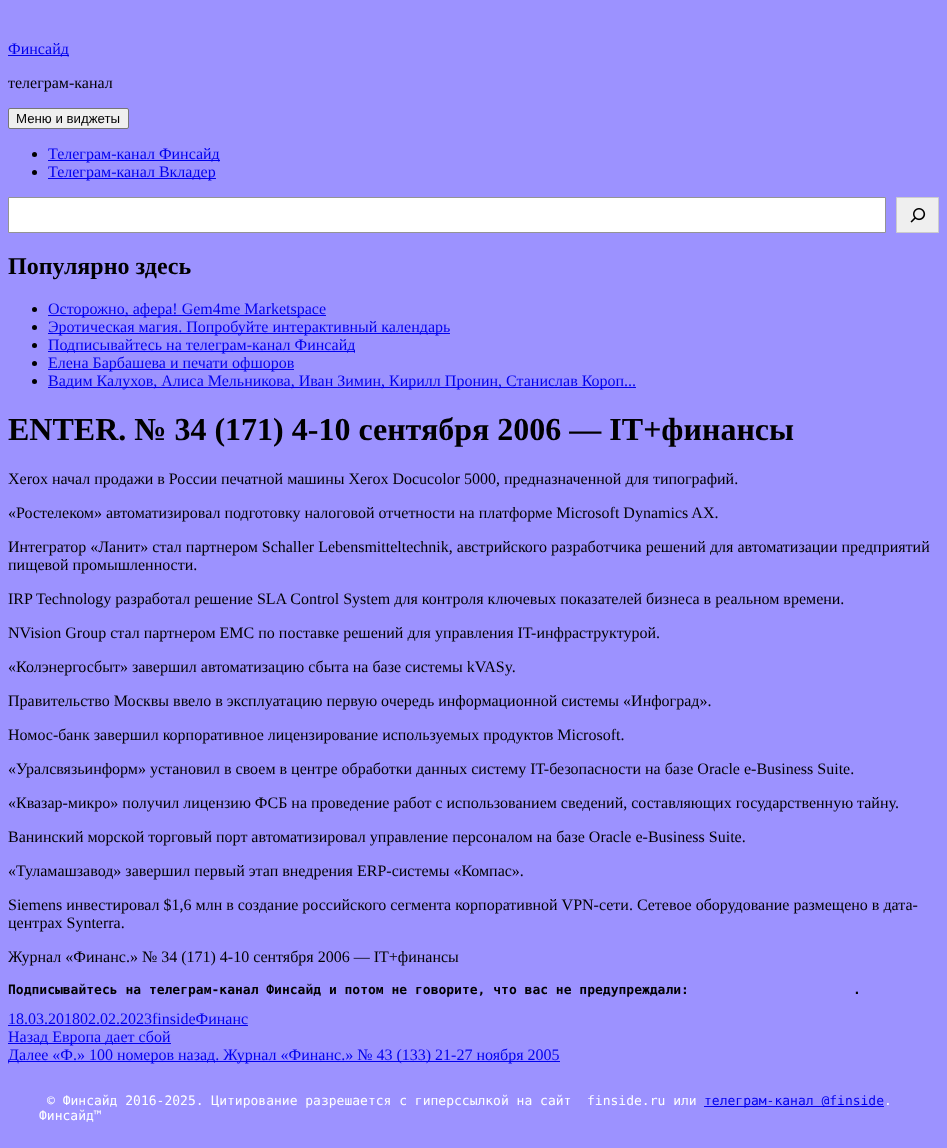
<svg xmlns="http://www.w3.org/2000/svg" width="947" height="1148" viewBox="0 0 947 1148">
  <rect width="100%" height="100%" fill="#9c92ff"/>
  <path d="M8 55h61v1H8z" fill="#00e"/>
  <rect x="8.5" y="108.5" width="120" height="20" rx="1.5" fill="#efefef" stroke="#767676"/>
  <circle cx="34.5" cy="154.5" r="2.5" fill="#000"/>
  <path d="M48 160h172v1H48z" fill="#00e"/>
  <circle cx="34.5" cy="172.5" r="2.5" fill="#000"/>
  <path d="M48 178h168v1H48z" fill="#00e"/>
  <path d="M8.5 197.5h877v35H8.5z" fill="#fff" stroke="#949494"/>
  <path d="M896.5 197.5h42v35H896.5z" fill="#efefef" stroke="#ccc"/>
  <image x="910" y="208" width="16" height="15" href="img/1.png"/>
  <circle cx="34.5" cy="309.5" r="2.5" fill="#000"/>
  <path d="M48 315h278v1H48z" fill="#00e"/>
  <circle cx="34.5" cy="327.5" r="2.5" fill="#000"/>
  <path d="M48 333h402v1H48z" fill="#00e"/>
  <circle cx="34.5" cy="345.5" r="2.5" fill="#000"/>
  <path d="M48 351h307v1H48z" fill="#00e"/>
  <circle cx="34.5" cy="363.5" r="2.5" fill="#000"/>
  <path d="M48 369h246v1H48z" fill="#00e"/>
  <circle cx="34.5" cy="381.5" r="2.5" fill="#000"/>
  <path d="M48 387h588v1H48z" fill="#00e"/>
  <path d="M8 1025h240v1H8z" fill="#00e"/>
  <path d="M8 1043h163v1H8z" fill="#00e"/>
  <path d="M8 1061h552v1H8z" fill="#00e"/>
  <path d="M704 1106h180v1H704z" fill="#00e"/>
  <text x="8" y="54" font-family="Liberation Serif" font-size="16" fill="#00e">Финсайд</text>
  <text x="8" y="88" font-family="Liberation Serif" font-size="16" fill="#000">телеграм-канал</text>
  <text x="16" y="123" font-family="Liberation Sans" font-size="13.25" fill="#000">Меню и виджеты</text>
  <g font-family="Liberation Serif" font-size="16" fill="#00e">
    <text x="48" y="159">Телеграм-канал Финсайд</text>
    <text x="48" y="177">Телеграм-канал Вкладер</text>
  </g>
  <text x="8" y="274" font-family="Liberation Serif" font-size="24" font-weight="bold" fill="#000">Популярно здесь</text>
  <g font-family="Liberation Serif" font-size="16" fill="#00e">
    <text x="48" y="314">Осторожно, афера! Gem4me Marketspace</text>
    <text x="48" y="332">Эротическая магия. Попробуйте интерактивный календарь</text>
    <text x="48" y="350">Подписывайтесь на телеграм-канал Финсайд</text>
    <text x="48" y="368">Елена Барбашева и печати офшоров</text>
    <text x="48" y="386">Вадим Калухов, Алиса Мельникова, Иван Зимин, Кирилл Пронин, Станислав Короп...</text>
  </g>
  <text x="8" y="440" font-family="Liberation Serif" font-size="32" font-weight="bold" fill="#000">ENTER. № 34 (171) 4-10 сентября 2006 — IT+финансы</text>
  <g font-family="Liberation Serif" font-size="16" fill="#000">
    <text x="8" y="484">Xerox начал продажи в России печатной машины Xerox Docucolor 5000, предназначенной для типографий.</text>
    <text x="8" y="518">«Ростелеком» автоматизировал подготовку налоговой отчетности на платформе Microsoft Dynamics AX.</text>
    <text x="8" y="552">Интегратор «Ланит» стал партнером Schaller Lebensmitteltechnik, австрийского разработчика решений для автоматизации предприятий</text>
    <text x="8" y="570">пищевой промышленности.</text>
    <text x="8" y="604">IRP Technology разработал решение SLA Control System для контроля ключевых показателей бизнеса в реальном времени.</text>
    <text x="8" y="638">NVision Group стал партнером EMC по поставке решений для управления IT-инфраструктурой.</text>
    <text x="8" y="672">«Колэнергосбыт» завершил автоматизацию сбыта на базе системы kVASy.</text>
    <text x="8" y="706">Правительство Москвы ввело в эксплуатацию первую очередь информационной системы «Инфоград».</text>
    <text x="8" y="740">Номос-банк завершил корпоративное лицензирование используемых продуктов Microsoft.</text>
    <text x="8" y="774">«Уралсвязьинформ» установил в своем в центре обработки данных систему IT-безопасности на базе Oracle e-Business Suite.</text>
    <text x="8" y="808">«Квазар-микро» получил лицензию ФСБ на проведение работ с использованием сведений, составляющих государственную тайну.</text>
    <text x="8" y="842">Ванинский морской торговый порт автоматизировал управление персоналом на базе Oracle e-Business Suite.</text>
    <text x="8" y="876">«Туламашзавод» завершил первый этап внедрения ERP-системы «Компас».</text>
    <text x="8" y="910">Siemens инвестировал $1,6 млн в создание российского сегмента корпоративной VPN-сети. Сетевое оборудование размещено в дата-</text>
    <text x="8" y="928">центрах Synterra.</text>
    <text x="8" y="962">Журнал «Финанс.» № 34 (171) 4-10 сентября 2006 — IT+финансы</text>
  </g>
  <g font-family="DejaVu Sans Mono" font-size="13" font-weight="bold" fill="#000">
    <text x="8" y="994">Подписывайтесь на телеграм-канал Финсайд и потом не говорите, что вас не предупреждали:</text>
    <text x="853" y="994">.</text>
  </g>
  <g font-family="Liberation Serif" font-size="16" fill="#00e">
    <text x="8" y="1024">18.03.201802.02.2023finsideФинанс</text>
    <text x="8" y="1042">Назад Европа дает сбой</text>
    <text x="8" y="1060">Далее «Ф.» 100 номеров назад. Журнал «Финанс.» № 43 (133) 21-27 ноября 2005</text>
  </g>
  <text x="47" y="1105" font-family="DejaVu Sans Mono" font-size="13" fill="#fff" xml:space="preserve">© Финсайд 2016-2025. Цитирование разрешается с гиперссылкой на сайт  finside.ru или</text>
  <text x="704" y="1105" font-family="DejaVu Sans Mono" font-size="13" fill="#00e">телеграм-канал @finside</text>
  <g font-family="DejaVu Sans Mono" font-size="13" fill="#fff">
    <text x="884" y="1105">.</text>
    <text x="39" y="1120">Финсайд™</text>
  </g>
</svg>
